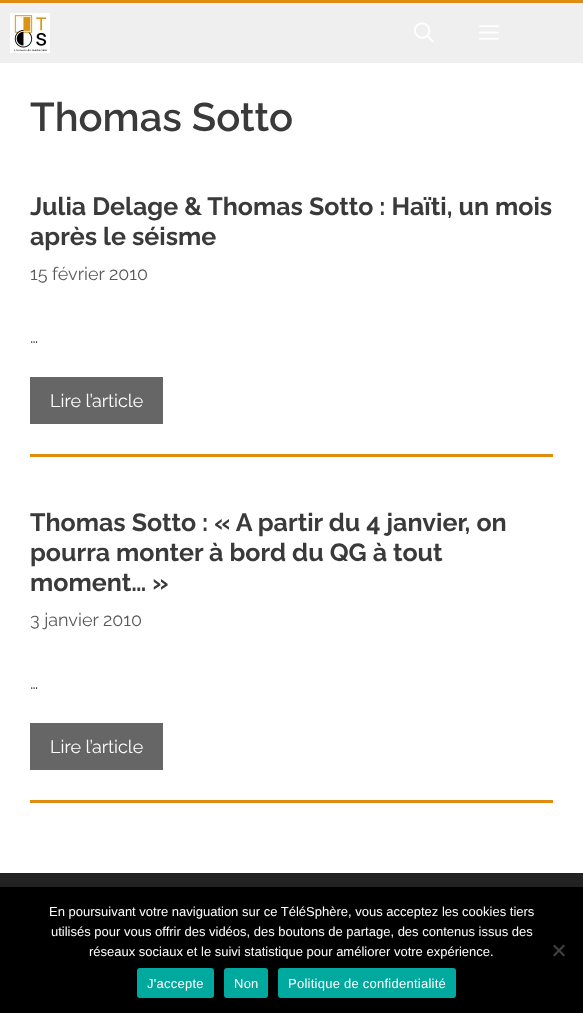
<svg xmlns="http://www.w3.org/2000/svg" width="583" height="1013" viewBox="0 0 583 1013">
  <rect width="100%" height="100%" fill="#efefef"/>
  <path d="M0 0h583v3H0z" fill="#df8c11"/>
  <image x="10" y="13" width="40" height="40" href="img/1.png"/>
  <image x="414" y="22" width="20" height="21" href="img/2.png"/>
  <image x="479" y="25" width="20" height="15" href="img/3.png"/>
  <path d="M0 63h583v810H0z" fill="#fff"/>
  <path d="M30 454h523v3H30z" fill="#df8c11"/>
  <path d="M30 377h133v47H30z" fill="#666"/>
  <path d="M30 800h523v3H30z" fill="#df8c11"/>
  <path d="M30 723h133v47H30z" fill="#666"/>
  <path d="M0 873h583v14H0z" fill="#222"/>
  <path d="M0 887h583v126H0z" fill="#000"/>
  <path d="M563.5 944.5L565 946L554.5 956.5L553 955Z" fill="#404040"/>
  <path d="M553 946L554.5 944.5L565 955L563.5 956.5Z" fill="#404040"/>
  <rect x="137" y="968" width="77" height="30" rx="3" fill="#00a99d"/>
  <rect x="224" y="968" width="44" height="30" rx="3" fill="#00a99d"/>
  <rect x="278" y="968" width="178" height="30" rx="3" fill="#00a99d"/>
  <text x="30" y="131" font-family="Raleway" font-size="40" font-weight="600" fill="#3a3a3a">Thomas Sotto</text>
  <g font-family="Raleway" font-size="25" font-weight="bold" fill="#3a3a3a">
    <text x="30" y="215">Julia Delage &amp; Thomas Sotto : Haïti, un mois</text>
    <text x="30" y="245">après le séisme</text>
  </g>
  <text x="30" y="280" font-family="Raleway" font-size="18" fill="#595959">15 février 2010</text>
  <text x="30" y="343" font-family="Raleway" font-size="18" fill="#3a3a3a">…</text>
  <text x="50" y="407" font-family="Raleway" font-size="18" fill="#fff">Lire l’article</text>
  <g font-family="Raleway" font-size="25" font-weight="bold" fill="#3a3a3a">
    <text x="30" y="531">Thomas Sotto : « A partir du 4 janvier, on</text>
    <text x="30" y="561">pourra monter à bord du QG à tout</text>
    <text x="30" y="591">moment… »</text>
  </g>
  <text x="30" y="626" font-family="Raleway" font-size="18" fill="#595959">3 janvier 2010</text>
  <text x="30" y="689" font-family="Raleway" font-size="18" fill="#3a3a3a">…</text>
  <text x="50" y="753" font-family="Raleway" font-size="18" fill="#fff">Lire l’article</text>
  <g font-family="Liberation Sans" font-size="13" fill="#fff">
    <text x="49" y="916">En poursuivant votre naviguation sur ce TéléSphère, vous acceptez les cookies tiers</text>
    <text x="51" y="936">utilisés pour vous offrir des vidéos, des boutons de partage, des contenus issus des</text>
    <text x="89" y="956">réseaux sociaux et le suivi statistique pour améliorer votre expérience.</text>
  </g>
  <g font-family="Liberation Sans" font-size="13" letter-spacing="0.25" fill="#fff">
    <text x="147" y="988">J'accepte</text>
    <text x="234" y="988">Non</text>
    <text x="288" y="988">Politique de confidentialité</text>
  </g>
</svg>
